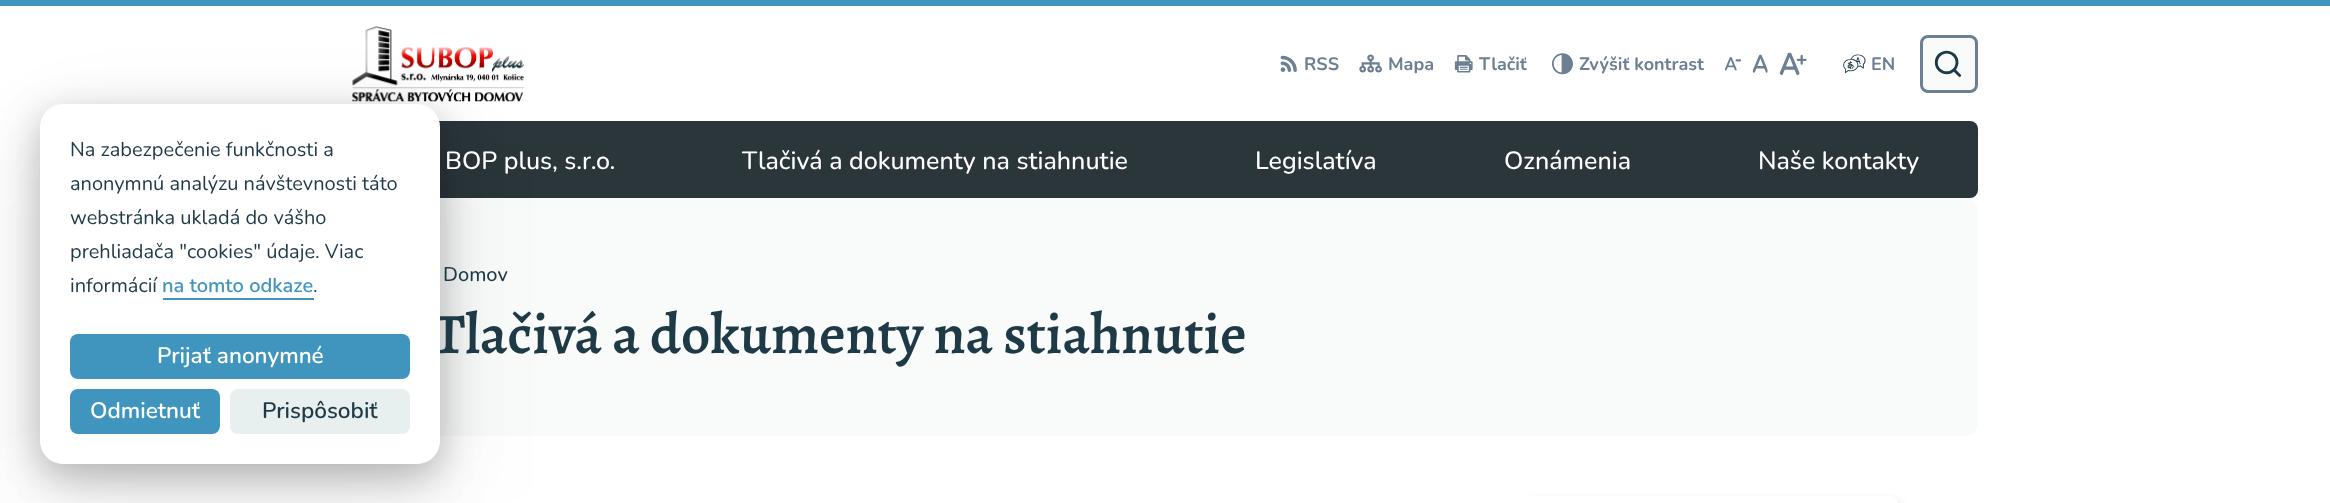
<svg xmlns="http://www.w3.org/2000/svg" width="2330" height="503" viewBox="0 0 2330 503">
  <rect width="100%" height="100%" fill="#fff"/>
  <path d="M0 0h2330v6H0z" fill="#4095bf"/>
  <image x="352" y="26" width="172" height="76" href="img/1.png"/>
  <rect x="353" y="121" width="1625" height="77" rx="8" fill="#2b363b"/>
  <rect x="353" y="198" width="1625" height="238" rx="13" fill="#f9fbfb"/>
  <rect x="40" y="141" width="400" height="360" rx="23" fill="#0000000d" filter="blur(56px)"/>
  <rect x="40" y="129" width="400" height="360" rx="23" fill="#0000000d" filter="blur(37.5px)"/>
  <rect x="40" y="116" width="400" height="360" rx="23" fill="#00000040" filter="blur(19px)"/>
  <image x="1280" y="55" width="17" height="17" href="img/2.png"/>
  <image x="1359" y="54" width="23" height="19" href="img/3.png"/>
  <image x="1454" y="55" width="19" height="18" href="img/4.png"/>
  <image x="1552" y="53" width="21" height="22" href="img/5.png"/>
  <image x="1724" y="57" width="18" height="14" href="img/6.png"/>
  <image x="1752" y="54" width="16" height="19" href="img/7.png"/>
  <image x="1779" y="52" width="28" height="23" href="img/8.png"/>
  <image x="1843" y="54" width="23" height="20" href="img/9.png"/>
  <rect x="1921.5" y="36.5" width="55" height="55" rx="6.5" fill="#f9fbfb" stroke="#6c7f93" stroke-width="3"/>
  <image x="1934" y="50" width="28" height="27" href="img/10.png"/>
  <rect x="1524" y="500" width="377" height="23" rx="8" fill="#0000001a" filter="blur(4px)"/>
  <rect x="1520" y="496" width="378" height="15" rx="8" fill="#fff"/>
  <g font-family="Nunito" font-size="18" font-weight="bold" fill="#6c7f93">
    <text x="1304" y="70">RSS</text>
    <text x="1388" y="70">Mapa</text>
    <text x="1479" y="70">Tlačiť</text>
    <text x="1579" y="70">Zvýšiť kontrast</text>
    <text x="1871" y="70">EN</text>
  </g>
  <g font-family="Nunito" font-size="25" font-weight="500" fill="#fff">
    <text x="445" y="169">BOP plus, s.r.o.</text>
    <text x="742" y="169">Tlačivá a dokumenty na stiahnutie</text>
    <text x="1255" y="169">Legislatíva</text>
    <text x="1504" y="169">Oznámenia</text>
    <text x="1758" y="169">Naše kontakty</text>
  </g>
  <text x="443" y="281" font-family="Nunito" font-size="20" font-weight="500" fill="#1f3a47">Domov</text>
  <text x="433" y="353" font-family="Alegreya" font-size="57.5" font-weight="600" fill="#1f3a47">Tlačivá a dokumenty na stiahnutie</text>
  <rect x="40" y="104" width="400" height="360" rx="23" fill="#fff"/>
  <rect x="230" y="389" width="180" height="45" rx="8" fill="#e7efef"/>
  <text x="262" y="418" font-family="Nunito" font-size="22.5" font-weight="600" fill="#1f3a47">Prispôsobiť</text>
  <rect x="70" y="389" width="150" height="45" rx="8" fill="#4095bf"/>
  <text x="90" y="418" font-family="Nunito" font-size="22.5" font-weight="600" fill="#fff">Odmietnuť</text>
  <rect x="70" y="334" width="340" height="45" rx="8" fill="#4095bf"/>
  <text x="157" y="363" font-family="Nunito" font-size="22.5" font-weight="600" fill="#fff">Prijať anonymné</text>
  <text x="162" y="292" font-family="Nunito" font-size="20" font-weight="600" fill="#4095bf">na tomto odkaze</text>
  <path d="M163 298h151v2H163z" fill="#4095bf"/>
  <g font-family="Nunito" font-size="20" fill="#1f3a47">
    <text x="313" y="292">.</text>
    <text x="70" y="292">informácií</text>
    <text x="70" y="258">prehliadača "cookies" údaje. Viac</text>
    <text x="70" y="224">webstránka ukladá do vášho</text>
    <text x="70" y="190">anonymnú analýzu návštevnosti táto</text>
    <text x="70" y="156">Na zabezpečenie funkčnosti a</text>
  </g>
</svg>
